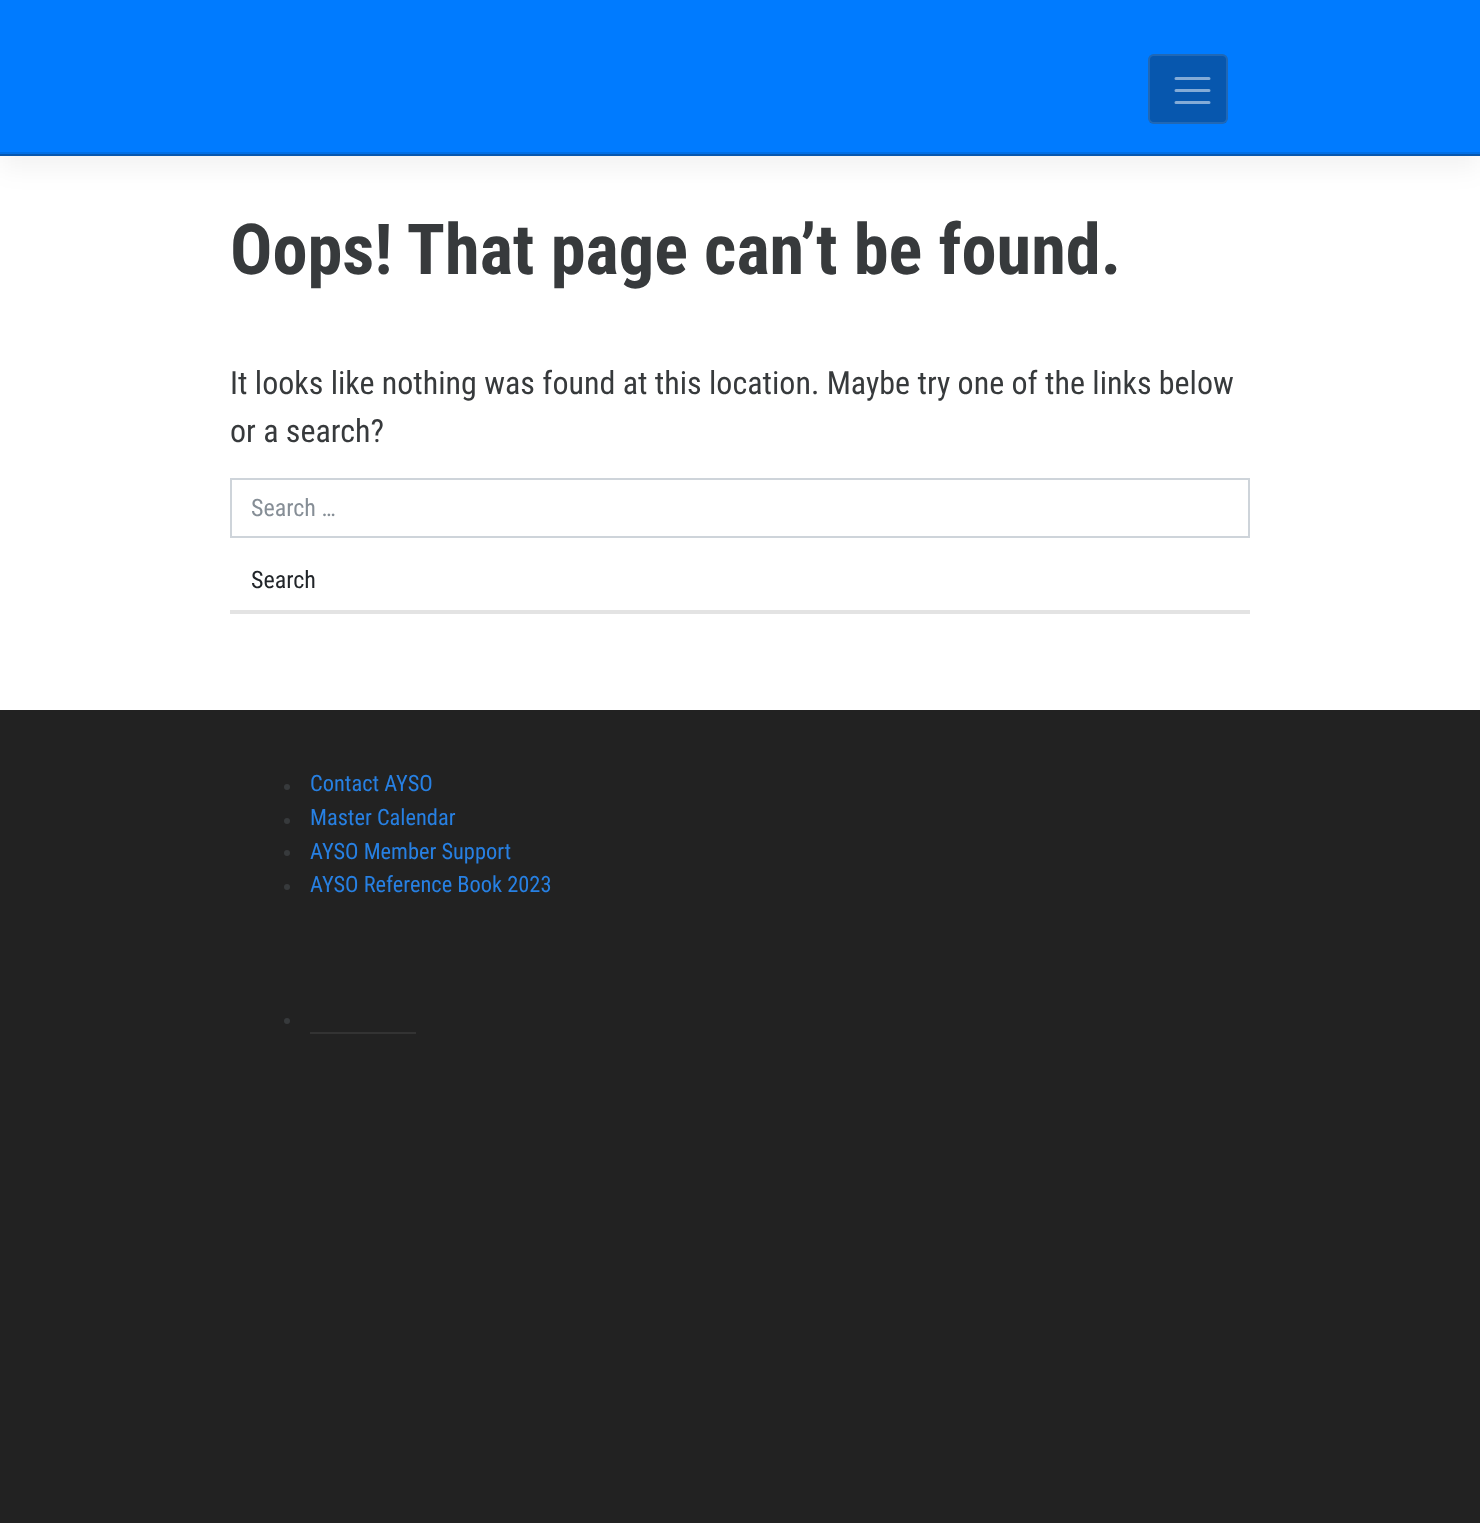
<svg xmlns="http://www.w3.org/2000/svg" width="1480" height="1523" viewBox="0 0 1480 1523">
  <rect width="100%" height="100%" fill="#fff"/>
  <path d="M0 -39h1480v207H0z" fill="#0000000d" filter="blur(13px)"/>
  <path d="M0 0h1480v152H0z" fill="#007bff"/>
  <path d="M0 152h1480v2H0z" fill="#006fe6"/>
  <path d="M0 154h1480v2H0z" fill="#0757ae"/>
  <rect x="1148" y="54" width="80" height="70" rx="6" fill="#0757ae"/>
  <rect x="1149" y="55" width="78" height="68" rx="5" fill="none" stroke="#ffffff1a" stroke-width="2"/>
  <path d="M1176 78.5H1209M1176 90.5H1209M1176 102.5H1209" fill="none" stroke="#83abd7" stroke-width="3" stroke-linecap="round"/>
  <path d="M230 610h1020v4H230z" fill="#e3e3e3"/>
  <path d="M231 479h1018v58H231z" fill="none" stroke="#ced4da" stroke-width="2"/>
  <path d="M0 710h1480v813H0z" fill="#222"/>
  <circle cx="287" cy="787" r="3" fill="#373a3c"/>
  <circle cx="287" cy="821" r="3" fill="#373a3c"/>
  <circle cx="287" cy="853" r="3" fill="#373a3c"/>
  <circle cx="287" cy="887" r="3" fill="#373a3c"/>
  <circle cx="287" cy="1021" r="3" fill="#373a3c"/>
  <path d="M310 1032h106v2H310z" fill="#333"/>
  <text x="230" y="274" font-family="Roboto Condensed" font-size="70.4" font-weight="bold" fill="#373a3c">Oops! That page can’t be found.</text>
  <g font-family="Roboto Condensed" font-size="32" fill="#373a3c">
    <text x="230" y="394">It looks like nothing was found at this location. Maybe try one of the links below</text>
    <text x="230" y="442">or a search?</text>
  </g>
  <text x="251" y="516" font-family="Roboto Condensed" font-size="24" fill="#868e96">Search …</text>
  <text x="251" y="588" font-family="Roboto Condensed" font-size="24" fill="#212529">Search</text>
  <g font-family="Roboto Condensed" font-size="22.4" fill="#2780e3">
    <text x="310" y="791">Contact AYSO</text>
    <text x="310" y="825">Master Calendar</text>
    <text x="310" y="859">AYSO Member Support</text>
    <text x="310" y="892">AYSO Reference Book 2023</text>
  </g>
</svg>
